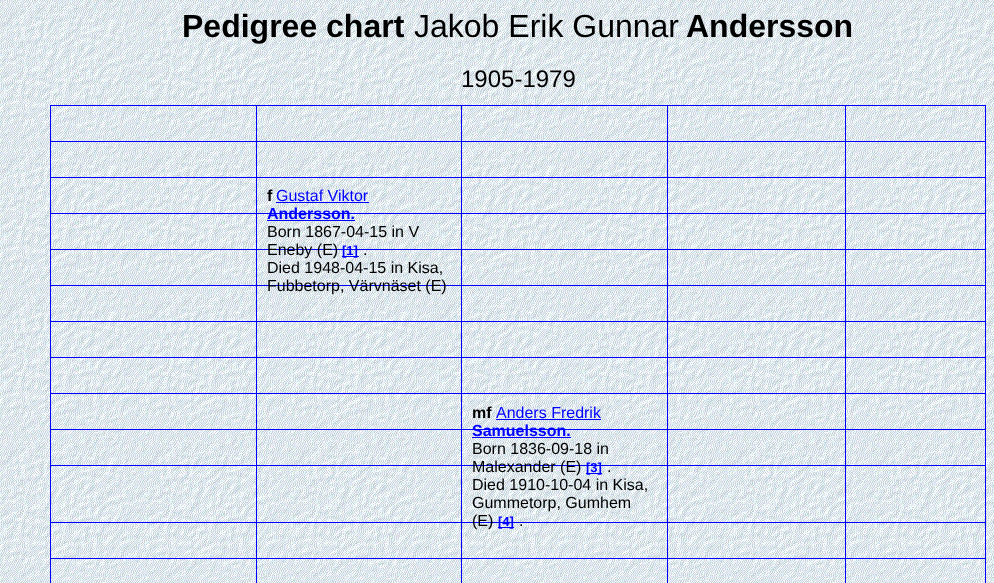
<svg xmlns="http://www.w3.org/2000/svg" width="994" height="583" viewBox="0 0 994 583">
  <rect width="100%" height="100%" fill="#fff"/>
  <image x="0" y="0" width="994" height="583" href="img/1.png"/>
  <path d="M50 105h936v1H50z" fill="#00f"/>
  <path d="M985 105h1v478H985z" fill="#00f"/>
  <path d="M50 105h1v478H50z" fill="#00f"/>
  <path d="M50 558h936v1H50z" fill="#00f"/>
  <path d="M50 141h936v1H50z" fill="#00f"/>
  <path d="M50 177h936v1H50z" fill="#00f"/>
  <path d="M50 213h936v1H50z" fill="#00f"/>
  <path d="M50 249h936v1H50z" fill="#00f"/>
  <path d="M50 285h936v1H50z" fill="#00f"/>
  <path d="M50 321h936v1H50z" fill="#00f"/>
  <path d="M50 357h936v1H50z" fill="#00f"/>
  <path d="M50 393h936v1H50z" fill="#00f"/>
  <path d="M50 429h936v1H50z" fill="#00f"/>
  <path d="M50 465h936v1H50z" fill="#00f"/>
  <path d="M50 522h936v1H50z" fill="#00f"/>
  <path d="M461 105h1v478H461z" fill="#00f"/>
  <path d="M667 105h1v478H667z" fill="#00f"/>
  <path d="M845 105h1v478H845z" fill="#00f"/>
  <path d="M276 202h93v1H276z" fill="#00f"/>
  <path d="M267 220h88v1H267z" fill="#00f"/>
  <path d="M342 256h17v1H342z" fill="#00f"/>
  <path d="M256 105h1v478H256z" fill="#00f"/>
  <path d="M496 419h105v1H496z" fill="#00f"/>
  <path d="M472 437h99v1H472z" fill="#00f"/>
  <path d="M586 473h16v1H586z" fill="#00f"/>
  <path d="M498 527h16v1H498z" fill="#00f"/>
  <text x="182" y="37" font-family="Liberation Sans" font-size="32" font-weight="bold" fill="#000">Pedigree chart</text>
  <text x="414" y="37" font-family="Liberation Sans" font-size="32" fill="#000">Jakob Erik Gunnar</text>
  <text x="686" y="37" font-family="Liberation Sans" font-size="32" font-weight="bold" fill="#000">Andersson</text>
  <text x="461" y="87" font-family="Liberation Sans" font-size="24" fill="#000">1905-1979</text>
  <text x="267" y="201" font-family="Liberation Sans" font-size="16" font-weight="bold" fill="#000">f</text>
  <text x="276" y="201" font-family="Liberation Sans" font-size="16" fill="#00f">Gustaf Viktor</text>
  <text x="267" y="219" font-family="Liberation Sans" font-size="16" font-weight="bold" fill="#00f">Andersson.</text>
  <g font-family="Liberation Sans" font-size="16" fill="#000">
    <text x="267" y="237">Born 1867-04-15 in V</text>
    <text x="267" y="255">Eneby (E)</text>
  </g>
  <text x="342" y="255" font-family="Liberation Sans" font-size="13" font-weight="bold" fill="#00f">[1]</text>
  <g font-family="Liberation Sans" font-size="16" fill="#000">
    <text x="363" y="255">.</text>
    <text x="267" y="273">Died 1948-04-15 in Kisa,</text>
    <text x="267" y="291">Fubbetorp, Värvnäset (E)</text>
  </g>
  <text x="472" y="418" font-family="Liberation Sans" font-size="16" font-weight="bold" fill="#000">mf</text>
  <text x="496" y="418" font-family="Liberation Sans" font-size="16" fill="#00f">Anders Fredrik</text>
  <text x="472" y="436" font-family="Liberation Sans" font-size="16" font-weight="bold" fill="#00f">Samuelsson.</text>
  <g font-family="Liberation Sans" font-size="16" fill="#000">
    <text x="472" y="454">Born 1836-09-18 in</text>
    <text x="472" y="472">Malexander (E)</text>
  </g>
  <text x="586" y="472" font-family="Liberation Sans" font-size="13" font-weight="bold" fill="#00f">[3]</text>
  <g font-family="Liberation Sans" font-size="16" fill="#000">
    <text x="607" y="472">.</text>
    <text x="472" y="490">Died 1910-10-04 in Kisa,</text>
    <text x="472" y="508">Gummetorp, Gumhem</text>
    <text x="472" y="526">(E)</text>
  </g>
  <text x="498" y="526" font-family="Liberation Sans" font-size="13" font-weight="bold" fill="#00f">[4]</text>
  <text x="519" y="526" font-family="Liberation Sans" font-size="16" fill="#000">.</text>
</svg>
